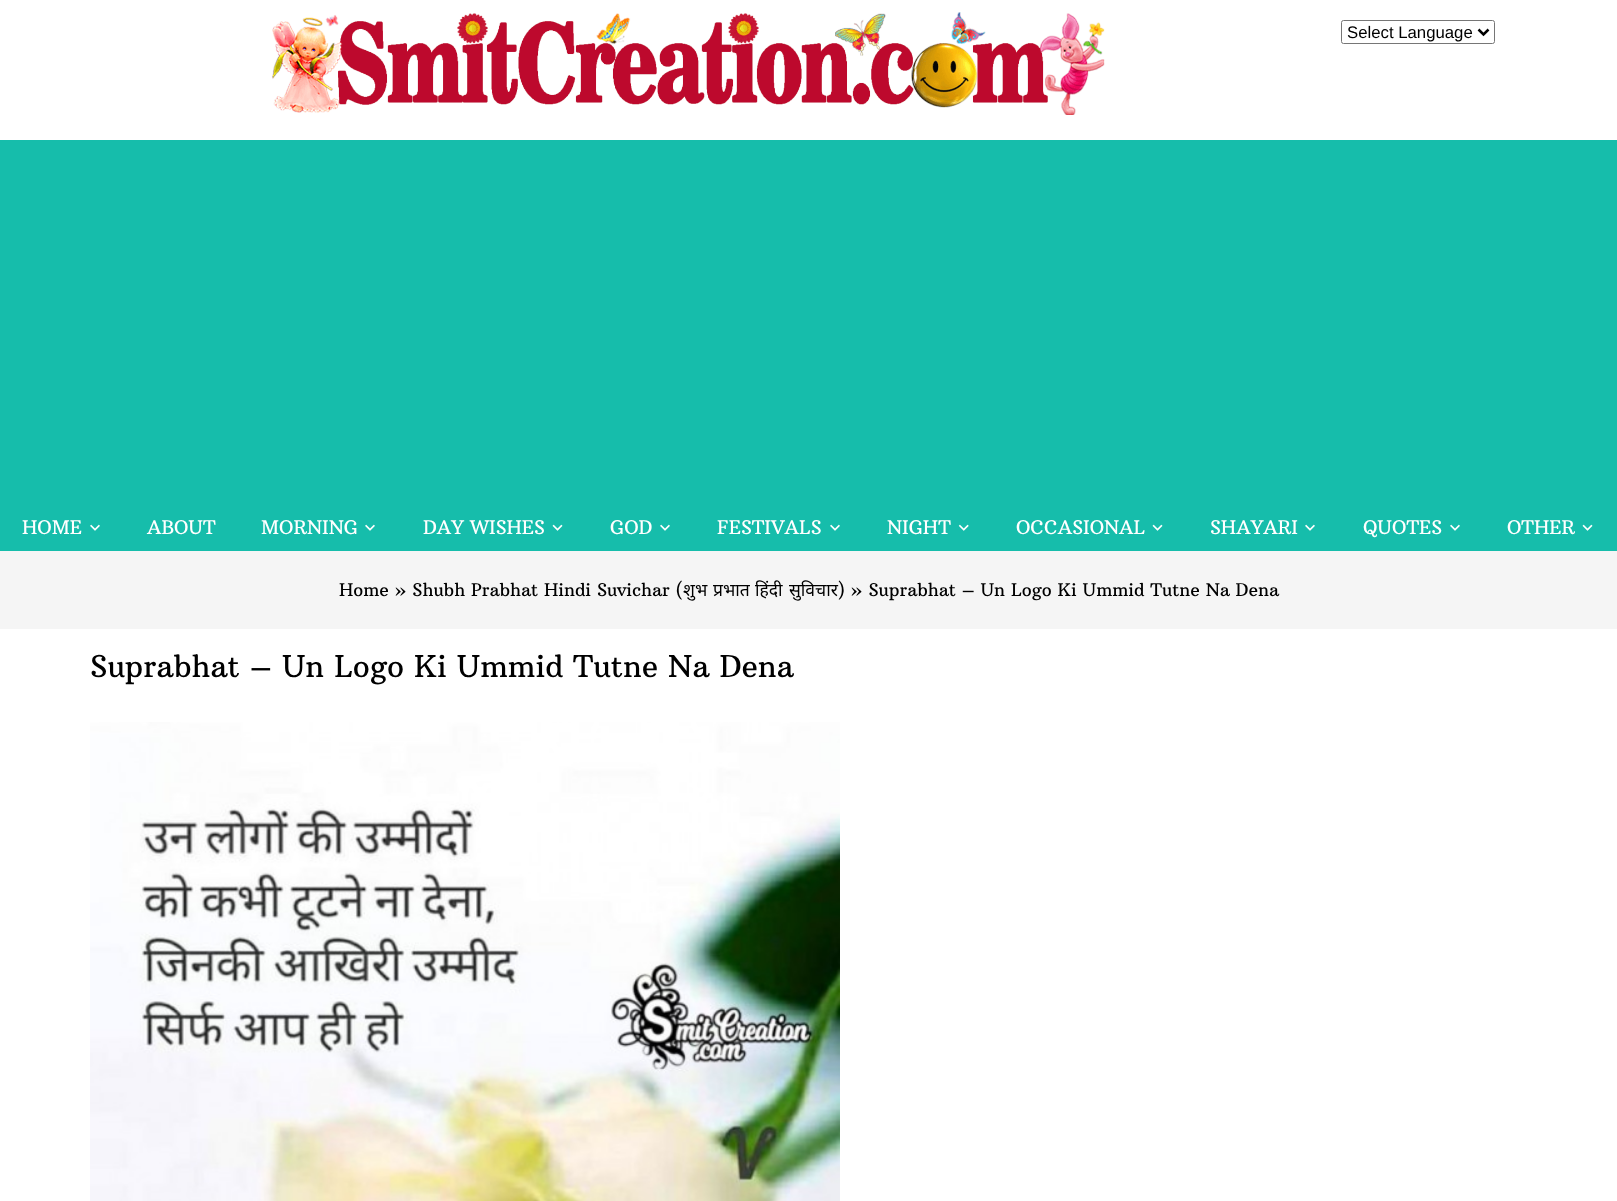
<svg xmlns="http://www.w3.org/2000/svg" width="1617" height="1201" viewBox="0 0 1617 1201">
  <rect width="100%" height="100%" fill="#fff"/>
  <image x="272" y="12" width="833" height="103" href="img/1.png"/>
  <rect x="1341.5" y="20.5" width="153" height="23" rx="2" fill="none" stroke="#767676"/>
  <path d="M1478.5 29.5L1483.5 34.5L1488.5 29.5" fill="none" stroke="#000" stroke-width="2.5"/>
  <path d="M0 140h1617v411H0z" fill="#16bdab"/>
  <image x="90" y="524" width="10" height="7" href="img/2.png"/>
  <image x="365" y="524" width="10" height="7" href="img/2.png"/>
  <image x="552" y="524" width="11" height="7" href="img/3.png"/>
  <image x="660" y="524" width="10" height="7" href="img/2.png"/>
  <image x="830" y="524" width="10" height="7" href="img/2.png"/>
  <image x="958" y="524" width="11" height="7" href="img/4.png"/>
  <image x="1152" y="524" width="11" height="7" href="img/3.png"/>
  <image x="1305" y="524" width="10" height="7" href="img/2.png"/>
  <image x="1450" y="524" width="10" height="7" href="img/2.png"/>
  <image x="1582" y="524" width="11" height="7" href="img/3.png"/>
  <path d="M0 551h1617v78H0z" fill="#f5f5f5"/>
  <image x="90" y="722" width="750" height="479" href="img/5.png"/>
  <text x="1347" y="38" font-family="Liberation Sans" font-size="16.75" fill="#000">Select Language</text>
  <g font-family="Arbutus Slab" font-size="18.75" fill="#fff">
    <text x="22" y="534">HOME</text>
    <text x="147" y="534">ABOUT</text>
    <text x="261" y="534">MORNING</text>
    <text x="423" y="534">DAY WISHES</text>
    <text x="610" y="534">GOD</text>
    <text x="717" y="534">FESTIVALS</text>
    <text x="887" y="534">NIGHT</text>
    <text x="1016" y="534">OCCASIONAL</text>
    <text x="1210" y="534">SHAYARI</text>
    <text x="1363" y="534">QUOTES</text>
    <text x="1507" y="534">OTHER</text>
  </g>
  <text x="339" y="596" font-family="Arbutus Slab" font-size="17.5" fill="#000">Home » Shubh Prabhat Hindi Suvichar (</text>
  <g font-family="Noto Sans" font-size="17.5" fill="#000">
    <text x="683" y="596">शुभ</text>
    <text x="713" y="596">प्रभात</text>
    <text x="755" y="596">हिंदी</text>
    <text x="789" y="596">सुविचार</text>
  </g>
  <text x="838" y="596" font-family="Arbutus Slab" font-size="17.5" fill="#000">) » Suprabhat – Un Logo Ki Ummid Tutne Na Dena</text>
  <text x="90" y="677" font-family="Arbutus Slab" font-size="30" fill="#000">Suprabhat – Un Logo Ki Ummid Tutne Na Dena</text>
</svg>
